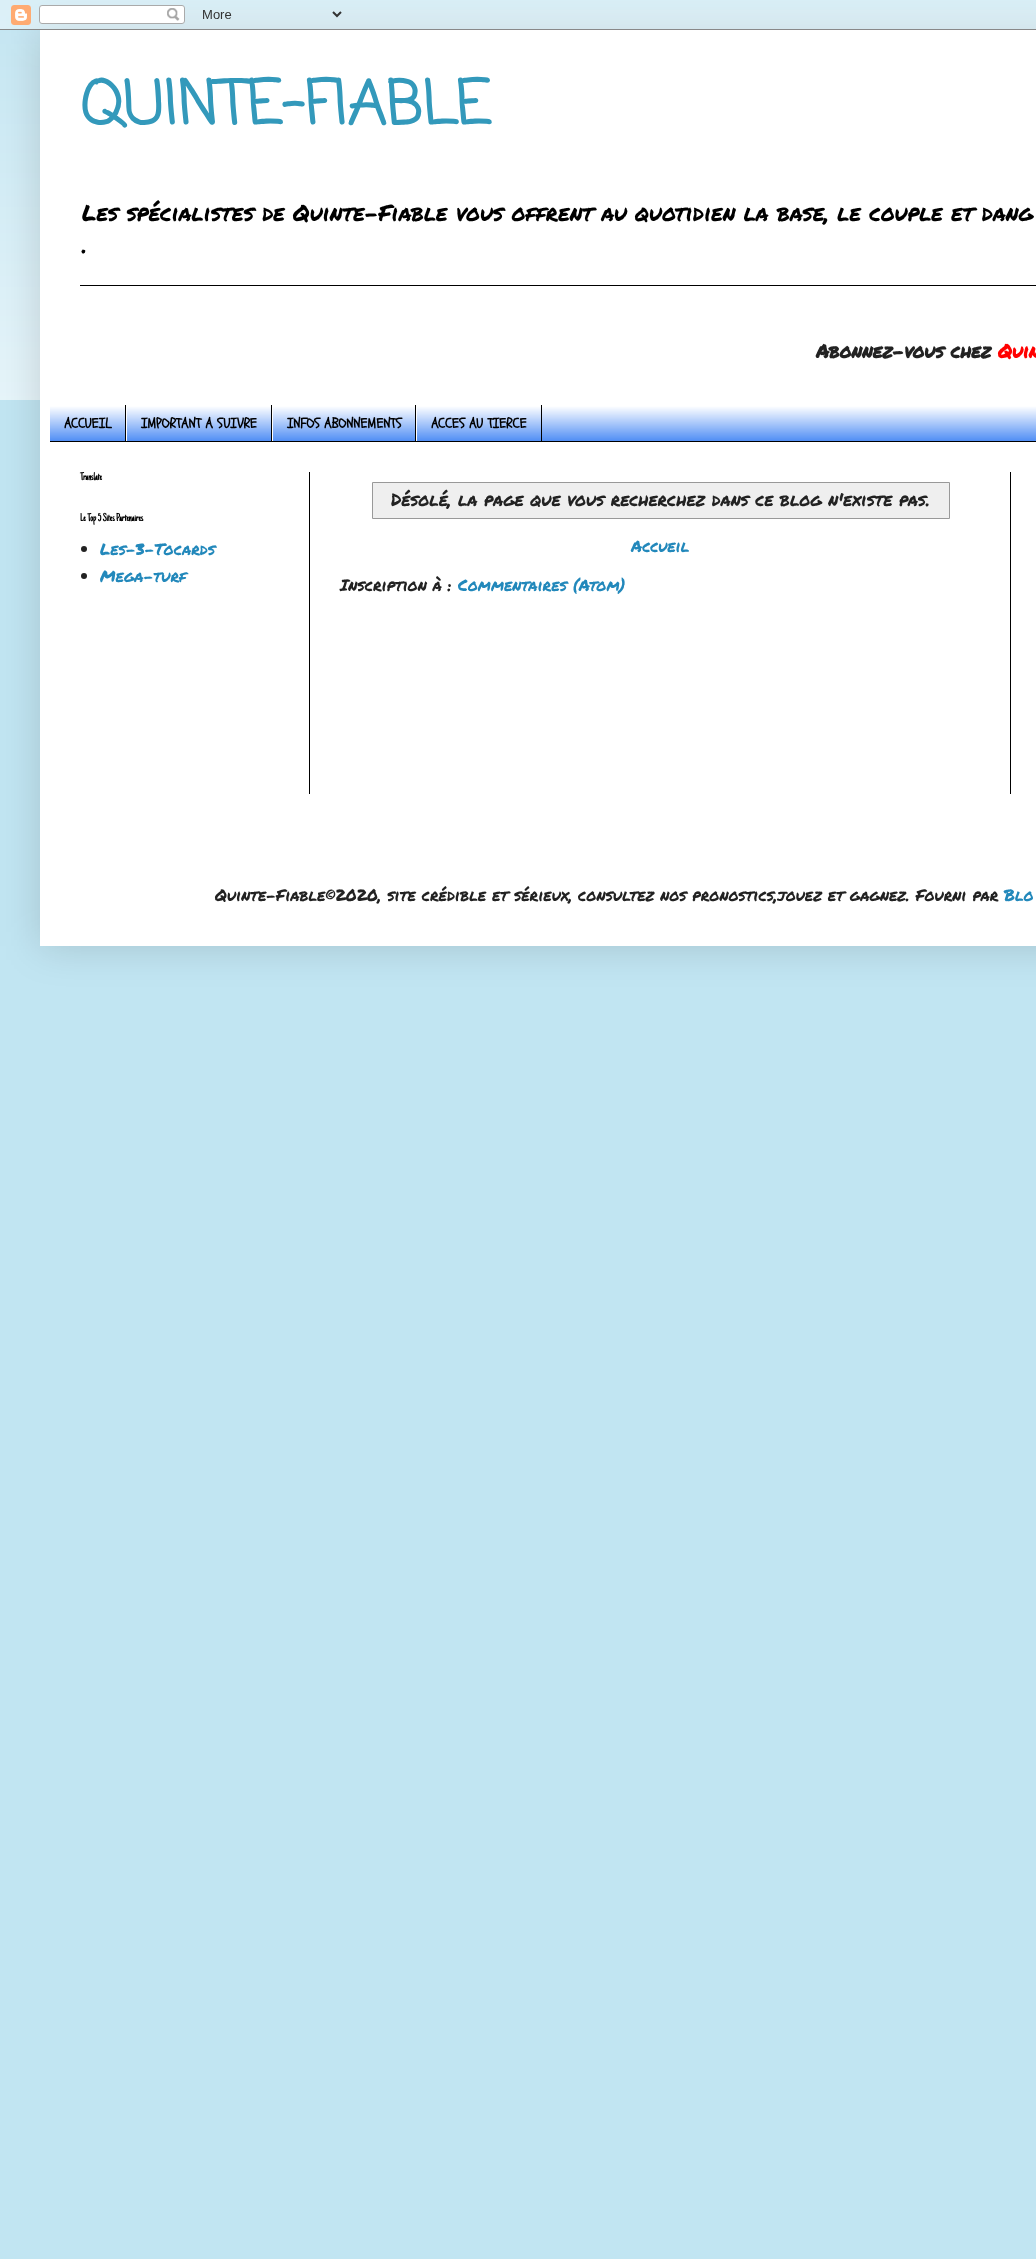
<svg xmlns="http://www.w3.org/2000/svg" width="1036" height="2259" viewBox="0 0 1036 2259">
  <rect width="100%" height="100%" fill="#c1e5f2"/>
  <image x="0" y="10" width="1036" height="390" href="img/2.png"/>
  <path d="M40 30h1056v916H40z" fill="#00000026" filter="blur(20px)"/>
  <image x="0" y="0" width="1036" height="30" href="img/1.png"/>
  <path d="M40 30h996v916H40z" fill="#fff"/>
  <path d="M80 285h956v1H80z" fill="#000"/>
  <path d="M50 406h986v35H50z" fill="#4285f4"/>
  <image x="50" y="405" width="986" height="36" href="img/3.png"/>
  <path d="M50 441h986v1H50z" fill="#000"/>
  <path d="M125 405h1v36H125z" fill="#000"/>
  <path d="M271 405h1v36H271z" fill="#000"/>
  <path d="M126 405h1v36H126z" fill="#fff"/>
  <path d="M415 405h1v36H415z" fill="#000"/>
  <path d="M272 405h1v36H272z" fill="#fff"/>
  <path d="M541 405h1v36H541z" fill="#000"/>
  <path d="M416 405h1v36H416z" fill="#fff"/>
  <circle cx="84" cy="549" r="3" fill="#222"/>
  <circle cx="84" cy="576" r="3" fill="#222"/>
  <path d="M372.5 482.5h577v36H372.5z" fill="none" stroke="#999"/>
  <path d="M373 483h576v35H373z" fill="#efefef"/>
  <path d="M309 472h1v322H309z" fill="#000"/>
  <path d="M1010 472h1v322H1010z" fill="#000"/>
  <text x="80" y="124" font-family="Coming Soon" font-size="60" font-weight="bold" fill="#39b">QUINTE-FIABLE</text>
  <g font-family="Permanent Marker" font-size="22.4" fill="#000">
    <text x="82" y="221">Les spécialistes de Quinte-Fiable vous offrent au quotidien la base, le couple et dang</text>
    <text x="82" y="253">.</text>
  </g>
  <text x="816" y="358" font-family="Permanent Marker" font-size="18.75" font-weight="bold" fill="#222">Abonnez-vous chez</text>
  <text x="998" y="358" font-family="Permanent Marker" font-size="18.75" font-weight="bold" fill="#f00">Quin</text>
  <g font-family="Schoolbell" font-size="14" font-weight="bold" fill="#000">
    <text x="64" y="428">ACCUEIL</text>
    <text x="141" y="428">IMPORTANT A SUIVRE</text>
    <text x="287" y="428">INFOS ABONNEMENTS</text>
    <text x="431" y="428">ACCES AU TIERCE</text>
  </g>
  <g font-family="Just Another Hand" font-size="11" font-weight="bold" fill="#000">
    <text x="80" y="480">Translate</text>
    <text x="80" y="521">Le Top 5 Sites Partenaires</text>
  </g>
  <g font-family="Permanent Marker" font-size="16" fill="#28b">
    <text x="100" y="555">Les-3-Tocards</text>
    <text x="100" y="582">Mega-turf</text>
  </g>
  <text x="391" y="506" font-family="Permanent Marker" font-size="17.6" fill="#222">Désolé, la page que vous recherchez dans ce blog n'existe pas.</text>
  <text x="631" y="552" font-family="Permanent Marker" font-size="16" fill="#28b">Accueil</text>
  <text x="340" y="591" font-family="Permanent Marker" font-size="16" fill="#222">Inscription à :</text>
  <text x="458" y="591" font-family="Permanent Marker" font-size="16" fill="#28b">Commentaires (Atom)</text>
  <text x="215" y="901" font-family="Permanent Marker" font-size="16" fill="#222">Quinte-Fiable©2020, site crédible et sérieux, consultez nos pronostics,jouez et gagnez. Fourni par</text>
  <text x="1004" y="901" font-family="Permanent Marker" font-size="16" fill="#28b">Blo</text>
</svg>
